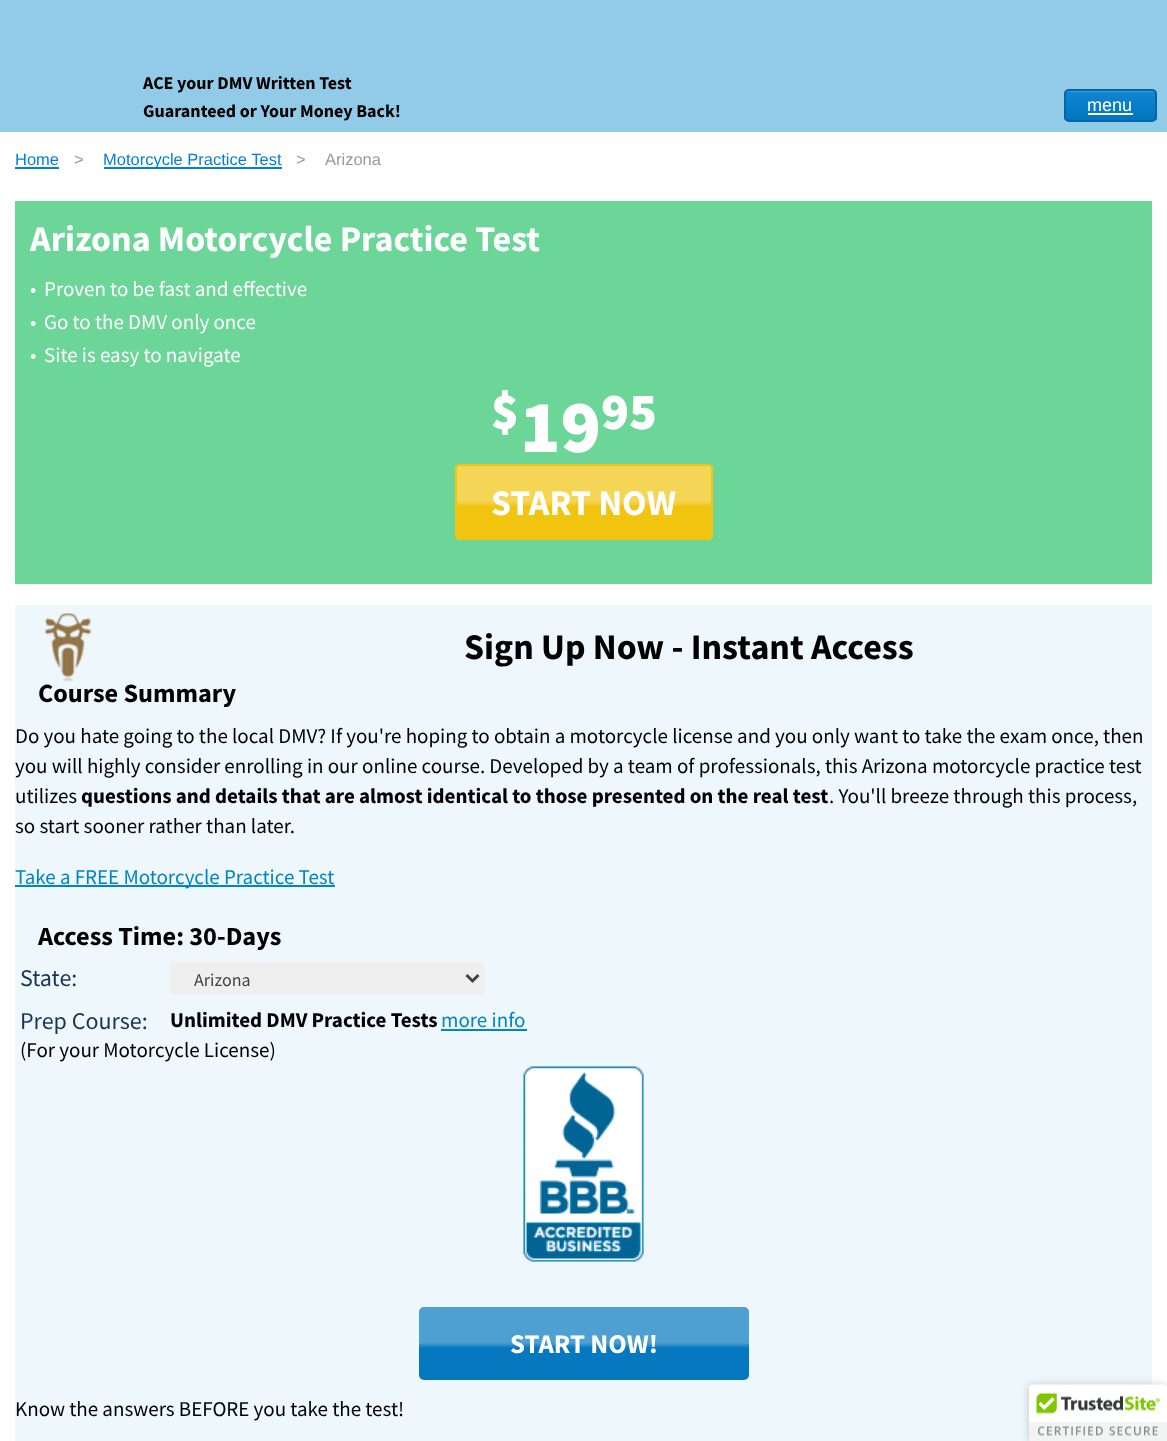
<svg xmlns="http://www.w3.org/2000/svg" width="1167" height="1441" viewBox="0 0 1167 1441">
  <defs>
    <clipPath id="clip1"><rect x="1064" y="89" width="93" height="33" rx="5"/></clipPath>
    <linearGradient id="g1" gradientUnits="userSpaceOnUse" x1="1110" y1="90" x2="1110" y2="120"><stop offset="0" stop-color="#1286d0"/><stop offset="1" stop-color="#0175bf"/></linearGradient>
    <clipPath id="clip2"><rect x="455" y="464" width="258" height="76" rx="5"/></clipPath>
    <linearGradient id="g2" gradientUnits="userSpaceOnUse" x1="584" y1="465" x2="584" y2="539"><stop offset="0" stop-color="#f5d555"/><stop offset="0.49" stop-color="#f5d555"/><stop offset="0.56" stop-color="#f1c40f"/><stop offset="1" stop-color="#f1c40f"/></linearGradient>
    <linearGradient id="g3" gradientUnits="userSpaceOnUse" x1="584" y1="1307" x2="584" y2="1380"><stop offset="0" stop-color="#4e9fd2"/><stop offset="0.49" stop-color="#4e9fd2"/><stop offset="0.56" stop-color="#0578c0"/><stop offset="1" stop-color="#0578c0"/></linearGradient>
  </defs>
  <rect width="100%" height="100%" fill="#fff"/>
  <path d="M0 0h1167v132H0z" fill="#92cbe8"/>
  <g clip-path="url(#clip1)">
    <path d="M1064 90h93v30H1064z" fill="url(#g1)"/>
  </g>
  <path d="M1068 92H1152C1154 92 1155 93 1155 94C1155 86 1142 90 1138 90H1082C1078 90 1065 86 1065 94C1065 93 1066 92 1068 92Z" fill="#389ad8"/>
  <rect x="1065" y="90" width="91" height="31" rx="4" fill="none" stroke="#0167a8" stroke-width="2"/>
  <path d="M1088 113h45v2H1088z" fill="#fff"/>
  <path d="M15 167h44v2H15z" fill="#007fdc"/>
  <path d="M104 167h178v2H104z" fill="#007fdc"/>
  <path d="M15 201h1137v383H15z" fill="#6cd698"/>
  <g clip-path="url(#clip2)">
    <path d="M455 465h258v74H455z" fill="url(#g2)"/>
  </g>
  <rect x="456" y="465" width="256" height="74" rx="4" fill="none" stroke="#f1c40f" stroke-width="2"/>
  <path d="M15 605h1137v836H15z" fill="#eef7fc"/>
  <image x="44" y="613" width="48" height="69" href="img/1.png"/>
  <path d="M15 885h320v2H15z" fill="#0085c7"/>
  <rect x="170" y="962" width="315" height="33" rx="5" fill="#efefef"/>
  <path d="M466.5 975L472.5 981L478.5 975" fill="none" stroke="#444" stroke-width="3"/>
  <path d="M441 1029h86v2H441z" fill="#0085c7"/>
  <image x="523" y="1066" width="121" height="196" href="img/2.png"/>
  <rect x="419" y="1307" width="330" height="73" rx="5" fill="url(#g3)"/>
  <rect x="1029" y="1385" width="138" height="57" rx="3" fill="#00000033" filter="blur(4px)"/>
  <path d="M1032 1385H1167V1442H1029V1388C1029 1386.5 1030.5 1385 1032 1385Z" fill="#fff"/>
  <image x="1029" y="1384" width="138" height="57" href="img/3.png"/>
  <g font-family="Source Sans Pro" font-size="18" font-weight="bold" fill="#000">
    <text x="143" y="89">ACE your DMV Written Test</text>
    <text x="143" y="117">Guaranteed or Your Money Back!</text>
  </g>
  <text x="1087" y="111" font-family="Liberation Sans" font-size="18" fill="#fff">menu</text>
  <text x="15" y="165" font-family="Liberation Sans" font-size="16.5" fill="#007fdc">Home</text>
  <text x="74" y="165" font-family="Liberation Sans" font-size="16.5" fill="#999">&gt;</text>
  <text x="103" y="165" font-family="Liberation Sans" font-size="16.5" fill="#007fdc">Motorcycle Practice Test</text>
  <g font-family="Liberation Sans" font-size="16.5" fill="#999">
    <text x="296" y="165">&gt;</text>
    <text x="325" y="165">Arizona</text>
  </g>
  <text x="30" y="251" font-family="Source Sans Pro" font-size="36" font-weight="bold" fill="#fff">Arizona Motorcycle Practice Test</text>
  <g font-family="Source Sans Pro" font-size="21" fill="#fff">
    <text x="30" y="296">•</text>
    <text x="44" y="296">Proven to be fast and effective</text>
    <text x="30" y="329">•</text>
    <text x="44" y="329">Go to the DMV only once</text>
    <text x="30" y="362">•</text>
    <text x="44" y="362">Site is easy to navigate</text>
  </g>
  <text x="491" y="429" font-family="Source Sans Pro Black" font-size="52" font-weight="900" fill="#fff">$</text>
  <text x="520" y="452" font-family="Source Sans Pro Black" font-size="75" font-weight="900" fill="#fff">19</text>
  <text x="601" y="429" font-family="Source Sans Pro Black" font-size="52" font-weight="900" fill="#fff">95</text>
  <text x="491" y="515" font-family="Source Sans Pro" font-size="36" font-weight="bold" fill="#fff">START NOW</text>
  <text x="464" y="659" font-family="Source Sans Pro" font-size="36" font-weight="bold" fill="#000">Sign Up Now - Instant Access</text>
  <text x="38" y="702" font-family="Source Sans Pro" font-size="26.25" font-weight="bold" fill="#000">Course Summary</text>
  <g font-family="Source Sans Pro" font-size="21" fill="#000">
    <text x="15" y="743">Do you hate going to the local DMV? If you're hoping to obtain a motorcycle license and you only want to take the exam once, then</text>
    <text x="15" y="773">you will highly consider enrolling in our online course. Developed by a team of professionals, this Arizona motorcycle practice test</text>
    <text x="15" y="803">utilizes</text>
  </g>
  <text x="81" y="803" font-family="Source Sans Pro" font-size="21" font-weight="bold" fill="#000">questions and details that are almost identical to those presented on the real test</text>
  <g font-family="Source Sans Pro" font-size="21" fill="#000">
    <text x="829" y="803">. You'll breeze through this process,</text>
    <text x="15" y="833">so start sooner rather than later.</text>
  </g>
  <text x="15" y="884" font-family="Source Sans Pro" font-size="21" fill="#0085c7">Take a FREE Motorcycle Practice Test</text>
  <text x="38" y="945" font-family="Source Sans Pro" font-size="26.25" font-weight="bold" fill="#000">Access Time: 30-Days</text>
  <text x="20" y="986" font-family="Source Sans Pro" font-size="24" fill="#1b3454">State:</text>
  <text x="194" y="986" font-family="Source Sans Pro" font-size="18" fill="#444">Arizona</text>
  <text x="170" y="1027" font-family="Source Sans Pro" font-size="21" font-weight="bold" fill="#000">Unlimited DMV Practice Tests</text>
  <text x="441" y="1027" font-family="Source Sans Pro" font-size="21" fill="#0085c7">more info</text>
  <text x="20" y="1057" font-family="Source Sans Pro" font-size="21" fill="#000">(For your Motorcycle License)</text>
  <text x="20" y="1029" font-family="Source Sans Pro" font-size="24" fill="#1b3454">Prep Course:</text>
  <text x="510" y="1353" font-family="Source Sans Pro" font-size="27" font-weight="bold" fill="#fff">START NOW!</text>
  <text x="15" y="1416" font-family="Source Sans Pro" font-size="21" fill="#000">Know the answers BEFORE you take the test!</text>
</svg>
